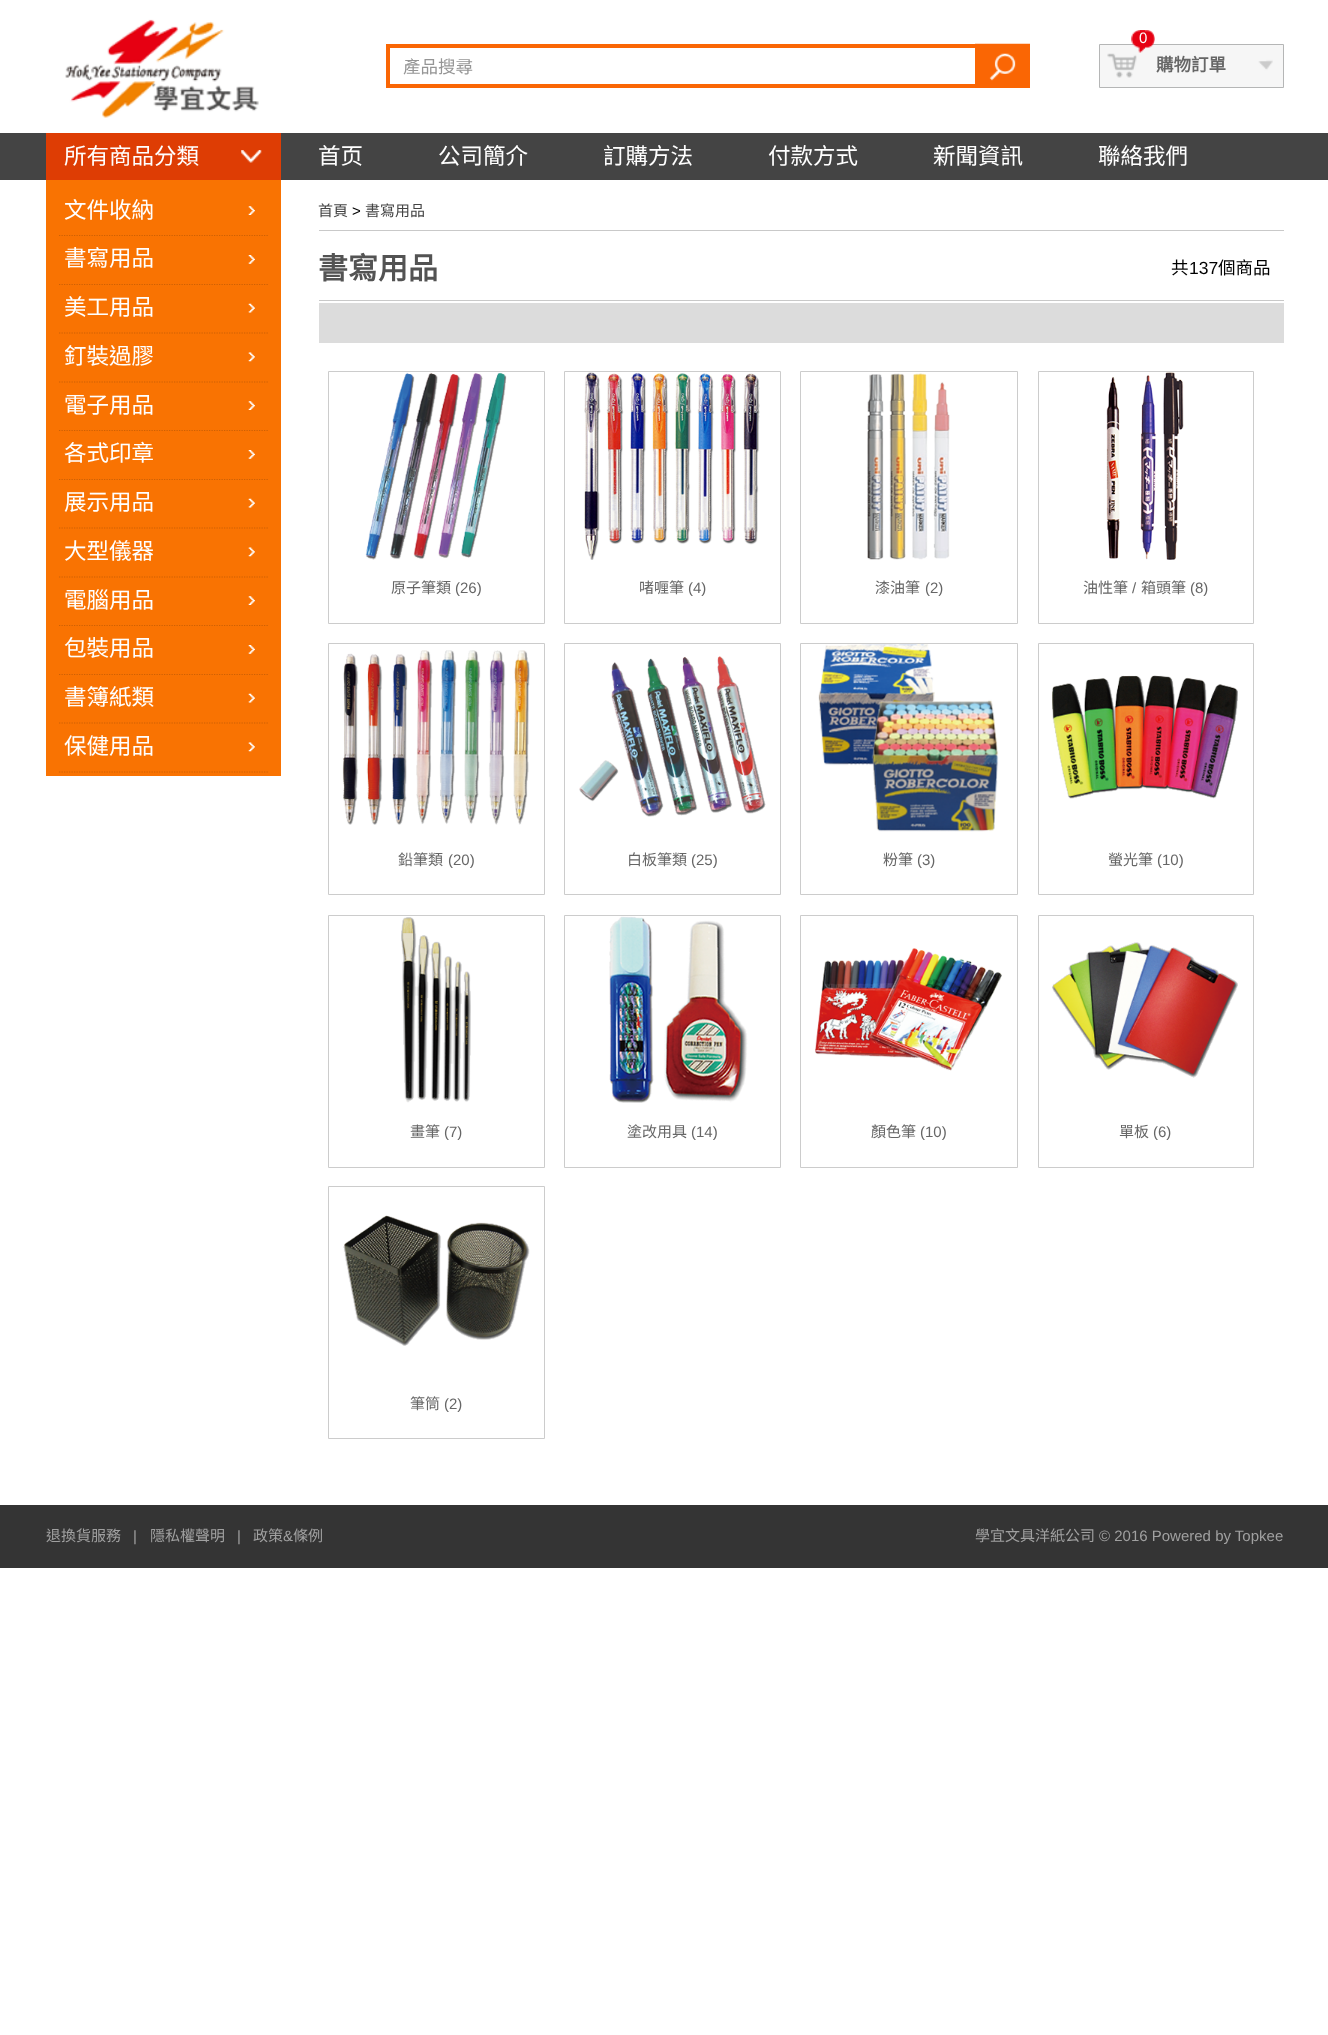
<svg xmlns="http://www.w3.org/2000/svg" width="1328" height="2035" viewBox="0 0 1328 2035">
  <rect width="100%" height="100%" fill="#fff"/>
  <image x="65" y="19" width="194" height="99" href="img/1.png"/>
  <path d="M388 46h640v40H388z" fill="none" stroke="#fa6604" stroke-width="4"/>
  <image x="975" y="43" width="55" height="41" href="img/2.png"/>
  <path d="M1100 45h183v42H1100z" fill="#f6f6f6"/>
  <image x="1107" y="53" width="166" height="25" href="img/3.png"/>
  <path d="M1099.5 44.5h184v43H1099.5z" fill="none" stroke="#b5b6b6"/>
  <image x="1131" y="30" width="14" height="23" href="img/4.png"/>
  <image x="1140" y="30" width="15" height="19" href="img/5.png"/>
  <path d="M0 133h1328v47H0z" fill="#444"/>
  <path d="M46 133h235v47H46z" fill="#de3d04"/>
  <image x="241" y="150" width="21" height="13" href="img/6.png"/>
  <path d="M46 180h235v596H46z" fill="#f97302"/>
  <image x="248" y="206" width="7" height="9" href="img/7.png"/>
  <path d="M59 235.5H269" fill="none" stroke="#cd6004" stroke-width="1.2" stroke-dasharray="1.25 1.25"/>
  <image x="248" y="255" width="7" height="9" href="img/8.png"/>
  <path d="M59 284.5H269" fill="none" stroke="#cd6004" stroke-width="1.2" stroke-dasharray="1.25 1.25"/>
  <image x="248" y="303" width="7" height="10" href="img/9.png"/>
  <path d="M59 333H269" fill="none" stroke="#cd6004" stroke-width="1.2" stroke-dasharray="1.25 1.25"/>
  <image x="248" y="352" width="7" height="10" href="img/10.png"/>
  <path d="M59 382H269" fill="none" stroke="#cd6004" stroke-width="1.2" stroke-dasharray="1.25 1.25"/>
  <image x="248" y="401" width="7" height="9" href="img/7.png"/>
  <path d="M59 430.5H269" fill="none" stroke="#cd6004" stroke-width="1.2" stroke-dasharray="1.25 1.25"/>
  <image x="248" y="450" width="7" height="9" href="img/8.png"/>
  <path d="M59 479.5H269" fill="none" stroke="#cd6004" stroke-width="1.2" stroke-dasharray="1.25 1.25"/>
  <image x="248" y="498" width="7" height="10" href="img/9.png"/>
  <path d="M59 528H269" fill="none" stroke="#cd6004" stroke-width="1.2" stroke-dasharray="1.25 1.25"/>
  <image x="248" y="547" width="7" height="10" href="img/10.png"/>
  <path d="M59 577H269" fill="none" stroke="#cd6004" stroke-width="1.2" stroke-dasharray="1.25 1.25"/>
  <image x="248" y="596" width="7" height="9" href="img/7.png"/>
  <path d="M59 625.5H269" fill="none" stroke="#cd6004" stroke-width="1.2" stroke-dasharray="1.25 1.25"/>
  <image x="248" y="645" width="7" height="9" href="img/8.png"/>
  <path d="M59 674.5H269" fill="none" stroke="#cd6004" stroke-width="1.2" stroke-dasharray="1.25 1.25"/>
  <image x="248" y="693" width="7" height="10" href="img/9.png"/>
  <path d="M59 723H269" fill="none" stroke="#cd6004" stroke-width="1.2" stroke-dasharray="1.25 1.25"/>
  <image x="248" y="742" width="7" height="10" href="img/10.png"/>
  <path d="M59 772H269" fill="none" stroke="#cd6004" stroke-width="1.2" stroke-dasharray="1.25 1.25"/>
  <path d="M319 230h965v1H319z" fill="#c9c9c9"/>
  <path d="M319 300h965v1H319z" fill="#c9c9c9"/>
  <path d="M319 303h965v40H319z" fill="#dcdcdc"/>
  <path d="M328.5 371.5h216v252H328.5z" fill="none" stroke="#ccc"/>
  <image x="365" y="372" width="142" height="188" href="img/11.png"/>
  <path d="M564.5 371.5h216v252H564.5z" fill="none" stroke="#ccc"/>
  <image x="584" y="372" width="176" height="188" href="img/12.png"/>
  <path d="M800.5 371.5h217v252H800.5z" fill="none" stroke="#ccc"/>
  <image x="867" y="373" width="83" height="187" href="img/13.png"/>
  <path d="M1038.5 371.5h215v252H1038.5z" fill="none" stroke="#ccc"/>
  <image x="1106" y="372" width="78" height="188" href="img/14.png"/>
  <path d="M328.5 643.5h216v251H328.5z" fill="none" stroke="#ccc"/>
  <image x="342" y="650" width="188" height="175" href="img/15.png"/>
  <path d="M564.5 643.5h216v251H564.5z" fill="none" stroke="#ccc"/>
  <image x="579" y="656" width="187" height="161" href="img/16.png"/>
  <path d="M800.5 643.5h217v251H800.5z" fill="none" stroke="#ccc"/>
  <image x="818" y="644" width="181" height="188" href="img/17.png"/>
  <path d="M1038.5 643.5h215v251H1038.5z" fill="none" stroke="#ccc"/>
  <image x="1052" y="675" width="186" height="124" href="img/18.png"/>
  <path d="M328.5 915.5h216v252H328.5z" fill="none" stroke="#ccc"/>
  <image x="401" y="917" width="70" height="186" href="img/19.png"/>
  <path d="M564.5 915.5h216v252H564.5z" fill="none" stroke="#ccc"/>
  <image x="609" y="916" width="139" height="187" href="img/20.png"/>
  <path d="M800.5 915.5h217v252H800.5z" fill="none" stroke="#ccc"/>
  <image x="815" y="948" width="187" height="123" href="img/21.png"/>
  <path d="M1038.5 915.5h215v252H1038.5z" fill="none" stroke="#ccc"/>
  <image x="1052" y="942" width="186" height="136" href="img/22.png"/>
  <path d="M328.5 1186.5h216v252H328.5z" fill="none" stroke="#ccc"/>
  <image x="343" y="1215" width="187" height="131" href="img/23.png"/>
  <path d="M0 1505h1328v63H0z" fill="#343434"/>
  <text x="403" y="73" font-family="Noto Sans CJK HK" font-size="17.5" fill="#959595">產品搜尋</text>
  <text x="1139" y="43" font-family="Liberation Sans" font-size="15" fill="#fff">0</text>
  <text x="1156" y="71" font-family="Noto Sans CJK HK" font-size="17.5" font-weight="bold" fill="#666">購物訂單</text>
  <g font-family="Noto Sans CJK HK" font-size="22.5" fill="#fff">
    <text x="64" y="164">所有商品分類</text>
    <text x="64" y="218">文件收納</text>
    <text x="64" y="266">書寫用品</text>
    <text x="64" y="315">美工用品</text>
    <text x="64" y="364">釘裝過膠</text>
    <text x="64" y="413">電子用品</text>
    <text x="64" y="461">各式印章</text>
    <text x="64" y="510">展示用品</text>
    <text x="64" y="559">大型儀器</text>
    <text x="64" y="608">電腦用品</text>
    <text x="64" y="656">包裝用品</text>
    <text x="64" y="705">書簿紙類</text>
    <text x="64" y="754">保健用品</text>
    <text x="318" y="164">首页</text>
    <text x="438" y="164">公司簡介</text>
    <text x="603" y="164">訂購方法</text>
    <text x="768" y="164">付款方式</text>
    <text x="933" y="164">新聞資訊</text>
    <text x="1098" y="164">聯絡我們</text>
  </g>
  <text x="318" y="216" font-family="Noto Sans CJK HK" font-size="15" fill="#444">首頁</text>
  <text x="352" y="216" font-family="Liberation Sans" font-size="15" fill="#000">&gt;</text>
  <text x="365" y="216" font-family="Noto Sans CJK HK" font-size="15" fill="#444">書寫用品</text>
  <text x="318" y="279" font-family="Noto Sans CJK HK" font-size="30" font-weight="bold" fill="#535353">書寫用品</text>
  <text x="1171" y="274" font-family="Noto Sans CJK HK" font-size="17.5" fill="#000">共</text>
  <text x="1189" y="274" font-family="Liberation Sans" font-size="17.5" fill="#000">137</text>
  <text x="1218" y="274" font-family="Noto Sans CJK HK" font-size="17.5" fill="#000">個商品</text>
  <text x="391" y="593" font-family="Noto Sans CJK HK" font-size="15" fill="#666">原子筆類</text>
  <text x="455" y="593" font-family="Liberation Sans" font-size="15" fill="#666">(26)</text>
  <text x="639" y="593" font-family="Noto Sans CJK HK" font-size="15" fill="#666">啫喱筆</text>
  <text x="688" y="593" font-family="Liberation Sans" font-size="15" fill="#666">(4)</text>
  <text x="875" y="593" font-family="Noto Sans CJK HK" font-size="15" fill="#666">漆油筆</text>
  <text x="925" y="593" font-family="Liberation Sans" font-size="15" fill="#666">(2)</text>
  <text x="1083" y="593" font-family="Noto Sans CJK HK" font-size="15" fill="#666">油性筆</text>
  <text x="1132" y="593" font-family="Liberation Sans" font-size="15" fill="#666">/</text>
  <text x="1141" y="593" font-family="Noto Sans CJK HK" font-size="15" fill="#666">箱頭筆</text>
  <text x="1190" y="593" font-family="Liberation Sans" font-size="15" fill="#666">(8)</text>
  <text x="398" y="865" font-family="Noto Sans CJK HK" font-size="15" fill="#666">鉛筆類</text>
  <text x="448" y="865" font-family="Liberation Sans" font-size="15" fill="#666">(20)</text>
  <text x="627" y="865" font-family="Noto Sans CJK HK" font-size="15" fill="#666">白板筆類</text>
  <text x="691" y="865" font-family="Liberation Sans" font-size="15" fill="#666">(25)</text>
  <text x="883" y="865" font-family="Noto Sans CJK HK" font-size="15" fill="#666">粉筆</text>
  <text x="917" y="865" font-family="Liberation Sans" font-size="15" fill="#666">(3)</text>
  <text x="1108" y="865" font-family="Noto Sans CJK HK" font-size="15" fill="#666">螢光筆</text>
  <text x="1157" y="865" font-family="Liberation Sans" font-size="15" fill="#666">(10)</text>
  <text x="410" y="1137" font-family="Noto Sans CJK HK" font-size="15" fill="#666">畫筆</text>
  <text x="444" y="1137" font-family="Liberation Sans" font-size="15" fill="#666">(7)</text>
  <text x="627" y="1137" font-family="Noto Sans CJK HK" font-size="15" fill="#666">塗改用具</text>
  <text x="691" y="1137" font-family="Liberation Sans" font-size="15" fill="#666">(14)</text>
  <text x="871" y="1137" font-family="Noto Sans CJK HK" font-size="15" fill="#666">顏色筆</text>
  <text x="920" y="1137" font-family="Liberation Sans" font-size="15" fill="#666">(10)</text>
  <text x="1119" y="1137" font-family="Noto Sans CJK HK" font-size="15" fill="#666">單板</text>
  <text x="1153" y="1137" font-family="Liberation Sans" font-size="15" fill="#666">(6)</text>
  <text x="410" y="1409" font-family="Noto Sans CJK HK" font-size="15" fill="#666">筆筒</text>
  <text x="444" y="1409" font-family="Liberation Sans" font-size="15" fill="#666">(2)</text>
  <text x="46" y="1541" font-family="Noto Sans CJK HK" font-size="15" fill="#a0a0a0">退換貨服務</text>
  <text x="133" y="1541" font-family="Liberation Sans" font-size="15" fill="#a0a0a0">|</text>
  <text x="150" y="1541" font-family="Noto Sans CJK HK" font-size="15" fill="#a0a0a0">隱私權聲明</text>
  <text x="237" y="1541" font-family="Liberation Sans" font-size="15" fill="#a0a0a0">|</text>
  <text x="253" y="1541" font-family="Noto Sans CJK HK" font-size="15" fill="#a0a0a0">政策</text>
  <text x="283" y="1541" font-family="Liberation Sans" font-size="15" fill="#a0a0a0">&amp;</text>
  <g font-family="Noto Sans CJK HK" font-size="15" fill="#a0a0a0">
    <text x="293" y="1541">條例</text>
    <text x="975" y="1541">學宜文具洋紙公司</text>
  </g>
  <text x="1099" y="1541" font-family="Liberation Sans" font-size="15" fill="#a0a0a0">© 2016 Powered by Topkee</text>
</svg>
